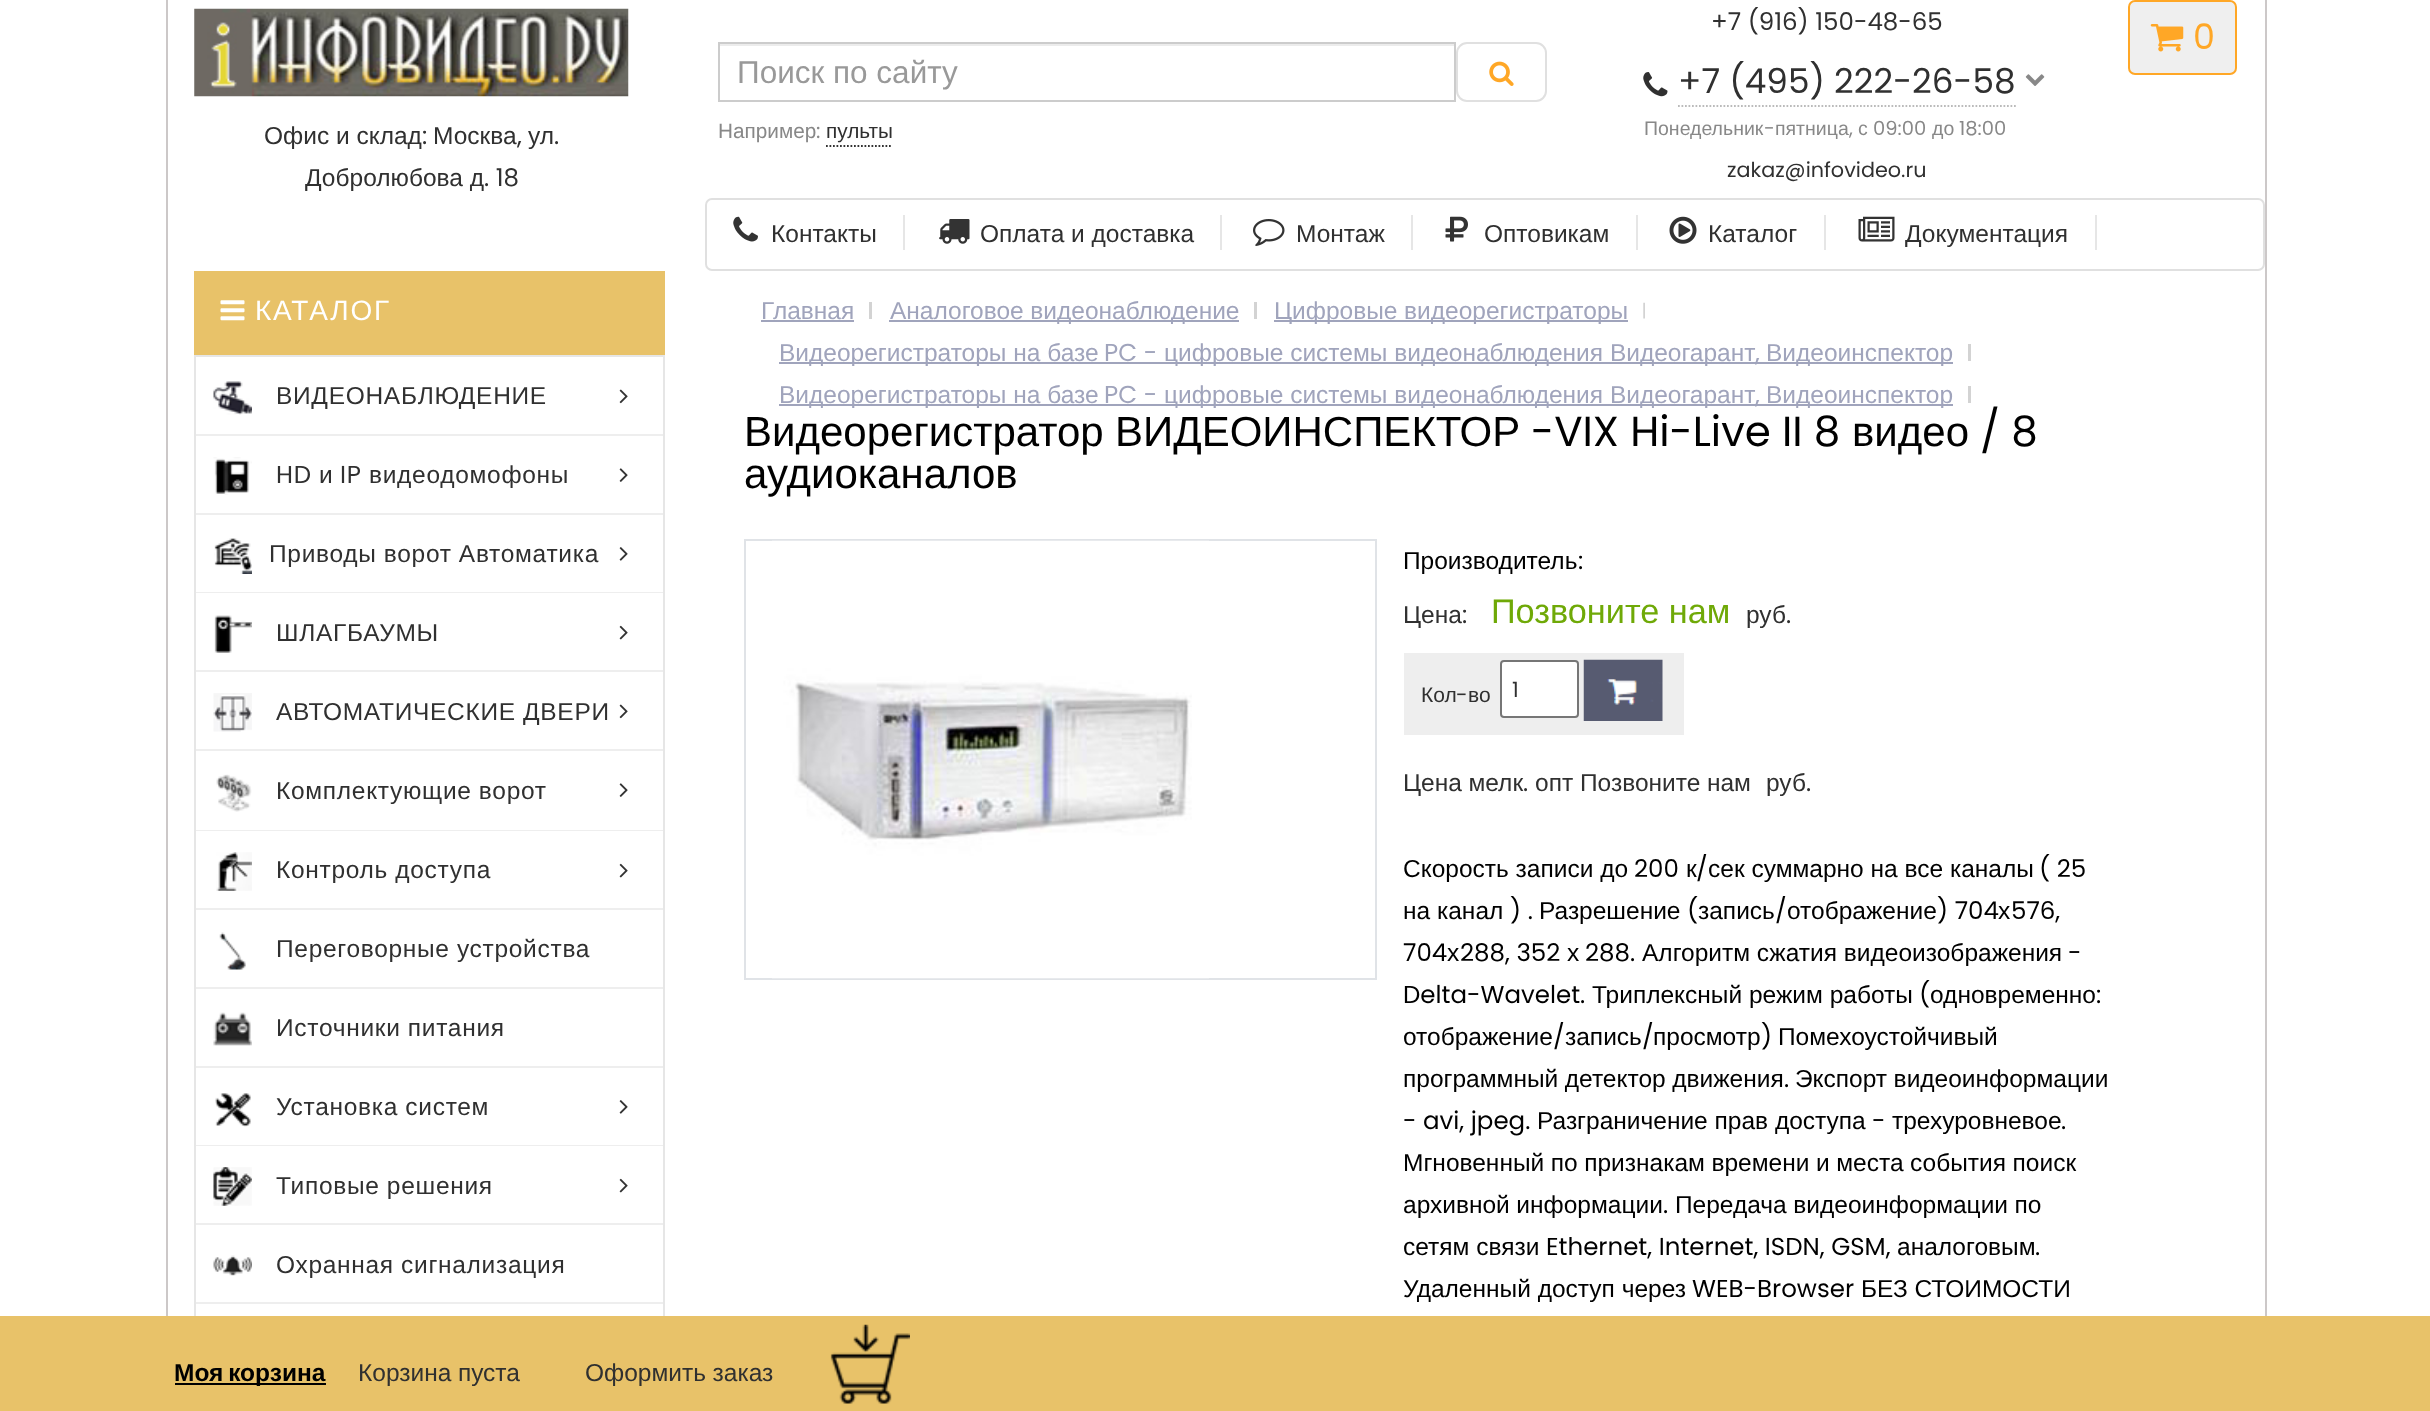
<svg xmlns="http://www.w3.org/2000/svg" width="2430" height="1411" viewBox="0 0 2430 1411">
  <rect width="100%" height="100%" fill="#fff"/>
  <path d="M2265 0h2v1316H2265z" fill="#ccc8c8"/>
  <path d="M166 0h2v1316H166z" fill="#ccc8c8"/>
  <image x="1643" y="72" width="25" height="25" href="img/1.png"/>
  <path d="M1678 106H2016" fill="none" stroke="#bbb" stroke-width="1.8" stroke-dasharray="1.75 1.75"/>
  <image x="2025" y="74" width="20" height="12" href="img/2.png"/>
  <rect x="2129" y="1" width="107" height="73" rx="6" fill="#efefef" stroke="#ffa726" stroke-width="2"/>
  <image x="2150" y="24" width="34" height="28" href="img/3.png"/>
  <path d="M719 44h735v2H719z" fill="#ececec"/>
  <path d="M719 43h736v58H719z" fill="none" stroke="#ccc" stroke-width="2"/>
  <rect x="1457" y="43" width="89" height="58" rx="10" fill="none" stroke="#e0e0e0" stroke-width="2"/>
  <image x="1489" y="61" width="25" height="25" href="img/4.png"/>
  <path d="M826 146H892.5" fill="none" stroke="#333" stroke-width="1.8" stroke-dasharray="1.75 1.75"/>
  <image x="194" y="8" width="435" height="89" href="img/5.png"/>
  <rect x="706" y="199" width="1558" height="71" rx="6" fill="none" stroke="#e0e0e0" stroke-width="2"/>
  <path d="M903 215h2v35H903z" fill="#e6e6e6"/>
  <image x="733" y="216" width="25" height="26" href="img/6.png"/>
  <path d="M1220 215h2v35H1220z" fill="#e6e6e6"/>
  <image x="939" y="219" width="31" height="25" href="img/7.png"/>
  <path d="M1411 215h2v35H1411z" fill="#e6e6e6"/>
  <image x="1253" y="219" width="32" height="27" href="img/8.png"/>
  <path d="M1636 215h2v35H1636z" fill="#e6e6e6"/>
  <image x="1445" y="216" width="23" height="26" href="img/9.png"/>
  <path d="M1824 215h2v35H1824z" fill="#e6e6e6"/>
  <image x="1669" y="216" width="28" height="28" href="img/10.png"/>
  <path d="M2095 215h2v35H2095z" fill="#e6e6e6"/>
  <image x="1858" y="216" width="37" height="26" href="img/11.png"/>
  <path d="M194 271h471v84H194z" fill="#e8c269"/>
  <image x="220" y="300" width="25" height="21" href="img/12.png"/>
  <path d="M195 356h469v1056H195z" fill="none" stroke="#e6e6e6" stroke-width="2"/>
  <path d="M196 434h467v2H196z" fill="#eee"/>
  <image x="213" y="381" width="39" height="34" href="img/13.png"/>
  <image x="619" y="389" width="9" height="15" href="img/14.png"/>
  <path d="M196 513h467v2H196z" fill="#eee"/>
  <image x="213" y="457" width="39" height="38" href="img/15.png"/>
  <image x="619" y="468" width="9" height="14" href="img/16.png"/>
  <path d="M196 592h467v1H196z" fill="#eee"/>
  <image x="214" y="538" width="38" height="36" href="img/17.png"/>
  <image x="619" y="547" width="9" height="14" href="img/18.png"/>
  <path d="M196 670h467v2H196z" fill="#eee"/>
  <image x="214" y="615" width="38" height="38" href="img/19.png"/>
  <image x="619" y="625" width="9" height="15" href="img/20.png"/>
  <path d="M196 749h467v2H196z" fill="#eee"/>
  <image x="213" y="693" width="39" height="39" href="img/21.png"/>
  <image x="619" y="704" width="9" height="15" href="img/14.png"/>
  <path d="M196 830h467v1H196z" fill="#eee"/>
  <image x="216" y="774" width="36" height="38" href="img/22.png"/>
  <image x="619" y="783" width="9" height="14" href="img/16.png"/>
  <path d="M196 908h467v2H196z" fill="#eee"/>
  <image x="216" y="852" width="36" height="39" href="img/23.png"/>
  <image x="619" y="863" width="9" height="15" href="img/20.png"/>
  <path d="M196 987h467v2H196z" fill="#eee"/>
  <image x="219" y="932" width="27" height="38" href="img/24.png"/>
  <path d="M196 1066h467v2H196z" fill="#eee"/>
  <image x="213" y="1012" width="39" height="34" href="img/25.png"/>
  <path d="M196 1145h467v1H196z" fill="#eee"/>
  <image x="215" y="1093" width="36" height="34" href="img/26.png"/>
  <image x="619" y="1100" width="9" height="14" href="img/18.png"/>
  <path d="M196 1223h467v2H196z" fill="#eee"/>
  <image x="213" y="1167" width="39" height="39" href="img/27.png"/>
  <image x="619" y="1178" width="9" height="15" href="img/20.png"/>
  <path d="M196 1302h467v2H196z" fill="#eee"/>
  <image x="213" y="1255" width="39" height="21" href="img/28.png"/>
  <path d="M869 302h3v17H869z" fill="#d3d3d3"/>
  <path d="M761 320h93v2H761z" fill="#a0a4bc"/>
  <path d="M1254 302h3v17H1254z" fill="#d3d3d3"/>
  <path d="M889 320h350v2H889z" fill="#a0a4bc"/>
  <image x="1643" y="302" width="2" height="17" href="img/29.png"/>
  <path d="M1274 320h354v2H1274z" fill="#a0a4bc"/>
  <path d="M1968 344h3v17H1968z" fill="#d3d3d3"/>
  <path d="M779 362h1174v2H779z" fill="#a0a4bc"/>
  <path d="M1968 386h3v17H1968z" fill="#d3d3d3"/>
  <path d="M779 404h1174v2H779z" fill="#a0a4bc"/>
  <path d="M745 540h631v439H745z" fill="none" stroke="#e0e3e7" stroke-width="2"/>
  <image x="772" y="540" width="437" height="439" href="img/30.png"/>
  <path d="M1404 653h280v82H1404z" fill="#eee"/>
  <rect x="1501" y="661" width="77" height="56" rx="3" fill="#fff" stroke="#767676" stroke-width="2"/>
  <image x="1583" y="659" width="80" height="62" href="img/31.png"/>
  <path d="M0 1316h2430v95H0z" fill="#e8c269"/>
  <path d="M175 1383h151v2H175z" fill="#000"/>
  <image x="830" y="1324" width="80" height="80" href="img/32.png"/>
  <text x="1711" y="30" font-family="Poppins" font-size="24.5" fill="#303030">+7 (916) 150-48-65</text>
  <text x="1678" y="93" font-family="Poppins" font-size="34.25" fill="#303030">+7 (495) 222-26-58</text>
  <text x="1644" y="135" font-family="Liberation Sans" font-size="19.5" fill="#888">Понедельник</text>
  <text x="1764" y="135" font-family="Poppins" font-size="19.5" fill="#888">-</text>
  <g font-family="Liberation Sans" font-size="19.5" fill="#888">
    <text x="1775" y="135">пятница</text>
    <text x="1858" y="135">с</text>
  </g>
  <text x="1873" y="135" font-family="Poppins" font-size="19.5" fill="#888">09:00</text>
  <text x="1932" y="135" font-family="Liberation Sans" font-size="19.5" fill="#888">до</text>
  <g font-family="Poppins" font-size="19.5" fill="#888">
    <text x="1959" y="135">18:00</text>
    <text x="1849" y="135">,</text>
  </g>
  <text x="1727" y="177" font-family="Poppins" font-size="20.75" fill="#303030">zakaz@infovideo.ru</text>
  <text x="2193" y="49" font-family="Poppins" font-size="35" fill="#ffa726">0</text>
  <text x="737" y="83" font-family="Liberation Sans" font-size="31.5" fill="#999">Поиск по сайту</text>
  <text x="718" y="138" font-family="Liberation Sans" font-size="20.75" fill="#888">Например</text>
  <text x="816" y="138" font-family="Poppins" font-size="20.75" fill="#888">:</text>
  <text x="826" y="138" font-family="Liberation Sans" font-size="20.75" fill="#303030">пульты</text>
  <text x="264" y="144" font-family="Liberation Sans" font-size="24.5" fill="#303030">Офис и склад</text>
  <text x="422" y="144" font-family="Poppins" font-size="24.5" fill="#303030">:</text>
  <text x="433" y="144" font-family="Liberation Sans" font-size="24.5" fill="#303030">Москва</text>
  <text x="517" y="144" font-family="Poppins" font-size="24.5" fill="#303030">,</text>
  <text x="528" y="144" font-family="Liberation Sans" font-size="24.5" fill="#303030">ул</text>
  <text x="554" y="144" font-family="Poppins" font-size="24.5" fill="#303030">.</text>
  <text x="305" y="186" font-family="Liberation Sans" font-size="24.5" fill="#303030">Добролюбова д</text>
  <text x="484" y="186" font-family="Poppins" font-size="24.5" fill="#303030">. 18</text>
  <g font-family="Liberation Sans" font-size="24.5" fill="#303030">
    <text x="771" y="242">Контакты</text>
    <text x="980" y="242">Оплата и доставка</text>
    <text x="1296" y="242">Монтаж</text>
    <text x="1484" y="242">Оптовикам</text>
    <text x="1708" y="242">Каталог</text>
    <text x="1905" y="242">Документация</text>
  </g>
  <text x="255" y="320" font-family="Liberation Sans" font-size="28" letter-spacing="1.75" fill="#fff">КАТАЛОГ</text>
  <text x="276" y="404" font-family="Liberation Sans" font-size="24.5" letter-spacing="0.7" fill="#303030">ВИДЕОНАБЛЮДЕНИЕ</text>
  <text x="276" y="483" font-family="Poppins" font-size="24.5" letter-spacing="0.7" fill="#303030">HD</text>
  <text x="319" y="483" font-family="Liberation Sans" font-size="24.5" letter-spacing="0.7" fill="#303030">и</text>
  <text x="340" y="483" font-family="Poppins" font-size="24.5" letter-spacing="0.7" fill="#303030">IP</text>
  <g font-family="Liberation Sans" font-size="24.5" letter-spacing="0.7" fill="#303030">
    <text x="369" y="483">видеодомофоны</text>
    <text x="269" y="562" word-spacing="-0.25">Приводы ворот Автоматика</text>
    <text x="276" y="641">ШЛАГБАУМЫ</text>
    <text x="276" y="720" word-spacing="-0.25">АВТОМАТИЧЕСКИЕ ДВЕРИ</text>
    <text x="276" y="799" word-spacing="-0.25">Комплектующие ворот</text>
    <text x="276" y="878" word-spacing="-0.25">Контроль доступа</text>
    <text x="276" y="957" word-spacing="-0.25">Переговорные устройства</text>
    <text x="276" y="1036" word-spacing="-0.25">Источники питания</text>
    <text x="276" y="1115" word-spacing="-0.25">Установка систем</text>
    <text x="276" y="1194" word-spacing="-0.25">Типовые решения</text>
    <text x="276" y="1273" word-spacing="-0.25">Охранная сигнализация</text>
  </g>
  <g font-family="Liberation Sans" font-size="24.5" fill="#a0a4bc">
    <text x="761" y="319">Главная</text>
    <text x="890" y="319" word-spacing="-0.25">Аналоговое видеонаблюдение</text>
    <text x="1274" y="319" word-spacing="-0.25">Цифровые видеорегистраторы</text>
    <text x="779" y="361">Видеорегистраторы на базе</text>
  </g>
  <text x="1104" y="361" font-family="Poppins" font-size="24.5" fill="#a0a4bc">PC -</text>
  <text x="1164" y="361" font-family="Liberation Sans" font-size="24.5" fill="#a0a4bc">цифровые системы видеонаблюдения Видеогарант</text>
  <text x="1755" y="361" font-family="Poppins" font-size="24.5" fill="#a0a4bc">,</text>
  <g font-family="Liberation Sans" font-size="24.5" fill="#a0a4bc">
    <text x="1766" y="361">Видеоинспектор</text>
    <text x="779" y="403">Видеорегистраторы на базе</text>
  </g>
  <text x="1104" y="403" font-family="Poppins" font-size="24.5" fill="#a0a4bc">PC -</text>
  <text x="1164" y="403" font-family="Liberation Sans" font-size="24.5" fill="#a0a4bc">цифровые системы видеонаблюдения Видеогарант</text>
  <text x="1755" y="403" font-family="Poppins" font-size="24.5" fill="#a0a4bc">,</text>
  <text x="1766" y="403" font-family="Liberation Sans" font-size="24.5" fill="#a0a4bc">Видеоинспектор</text>
  <g font-family="Liberation Sans" font-size="42" fill="#000">
    <text x="744" y="446">Видеорегистратор</text>
    <text x="1115" y="446">ВИДЕОИНСПЕКТОР</text>
  </g>
  <text x="1531" y="446" font-family="Poppins" font-size="42" fill="#000">-VIX Hi-Live II 8</text>
  <text x="1852" y="446" font-family="Liberation Sans" font-size="42" fill="#000">видео</text>
  <text x="1980" y="446" font-family="Poppins" font-size="42" fill="#000">/ 8</text>
  <text x="744" y="488" font-family="Liberation Sans" font-size="42" fill="#000">аудиоканалов</text>
  <text x="1403" y="569" font-family="Liberation Sans" font-size="24.5" fill="#000">Производитель</text>
  <text x="1578" y="569" font-family="Poppins" font-size="24.5" fill="#000">:</text>
  <text x="1403" y="623" font-family="Liberation Sans" font-size="24.5" fill="#303030">Цена</text>
  <text x="1462" y="623" font-family="Poppins" font-size="24.5" fill="#303030">:</text>
  <text x="1491" y="623" font-family="Liberation Sans" font-size="34.25" fill="#6fa907">Позвоните нам</text>
  <text x="1746" y="623" font-family="Liberation Sans" font-size="24.5" fill="#303030">руб</text>
  <text x="1786" y="623" font-family="Poppins" font-size="24.5" fill="#303030">.</text>
  <text x="1421" y="702" font-family="Liberation Sans" font-size="21" fill="#303030">Кол</text>
  <text x="1456" y="702" font-family="Poppins" font-size="21" fill="#303030">-</text>
  <text x="1468" y="702" font-family="Liberation Sans" font-size="21" fill="#303030">во</text>
  <text x="1512" y="697" font-family="Poppins" font-size="21" fill="#303030">1</text>
  <text x="1403" y="791" word-spacing="-0.25" font-family="Liberation Sans" font-size="24.5" fill="#303030">Цена мелк</text>
  <text x="1523" y="791" font-family="Poppins" font-size="24.5" fill="#303030">.</text>
  <g font-family="Liberation Sans" font-size="24.5" fill="#303030">
    <text x="1535" y="791">опт</text>
    <text x="1580" y="791" word-spacing="-0.25">Позвоните нам</text>
    <text x="1766" y="791">руб</text>
  </g>
  <text x="1806" y="791" font-family="Poppins" font-size="24.5" fill="#303030">.</text>
  <text x="1403" y="877" font-family="Liberation Sans" font-size="24.5" fill="#000">Скорость записи до</text>
  <text x="1634" y="877" font-family="Poppins" font-size="24.5" fill="#000">200</text>
  <text x="1686" y="877" font-family="Liberation Sans" font-size="24.5" fill="#000">к</text>
  <text x="1696" y="877" font-family="Poppins" font-size="24.5" fill="#000">/</text>
  <text x="1708" y="877" font-family="Liberation Sans" font-size="24.5" fill="#000">сек суммарно на все каналы</text>
  <text x="2039" y="877" font-family="Poppins" font-size="24.5" fill="#000">( 25</text>
  <text x="1403" y="919" font-family="Liberation Sans" font-size="24.5" fill="#000">на канал</text>
  <text x="1510" y="919" font-family="Poppins" font-size="24.5" fill="#000">) .</text>
  <text x="1539" y="919" font-family="Liberation Sans" font-size="24.5" fill="#000">Разрешение</text>
  <text x="1687" y="919" font-family="Poppins" font-size="24.5" fill="#000">(</text>
  <text x="1698" y="919" font-family="Liberation Sans" font-size="24.5" fill="#000">запись</text>
  <text x="1775" y="919" font-family="Poppins" font-size="24.5" fill="#000">/</text>
  <text x="1787" y="919" font-family="Liberation Sans" font-size="24.5" fill="#000">отображение</text>
  <text x="1937" y="919" font-family="Poppins" font-size="24.5" fill="#000">) 704</text>
  <text x="1998" y="919" font-family="Liberation Sans" font-size="24.5" fill="#000">х</text>
  <g font-family="Poppins" font-size="24.5" fill="#000">
    <text x="2011" y="919">576,</text>
    <text x="1403" y="961">704</text>
  </g>
  <text x="1447" y="961" font-family="Liberation Sans" font-size="24.5" fill="#000">х</text>
  <text x="1460" y="961" font-family="Poppins" font-size="24.5" fill="#000">288, 352</text>
  <text x="1567" y="961" font-family="Liberation Sans" font-size="24.5" fill="#000">х</text>
  <text x="1585" y="961" font-family="Poppins" font-size="24.5" fill="#000">288.</text>
  <text x="1642" y="961" font-family="Liberation Sans" font-size="24.5" fill="#000">Алгоритм сжатия видеоизображения</text>
  <g font-family="Poppins" font-size="24.5" fill="#000">
    <text x="2068" y="961">-</text>
    <text x="1403" y="1003">Delta-Wavelet.</text>
  </g>
  <text x="1592" y="1003" font-family="Liberation Sans" font-size="24.5" fill="#000">Триплексный режим работы</text>
  <text x="1919" y="1003" font-family="Poppins" font-size="24.5" fill="#000">(</text>
  <text x="1930" y="1003" font-family="Liberation Sans" font-size="24.5" fill="#000">одновременно</text>
  <text x="2096" y="1003" font-family="Poppins" font-size="24.5" fill="#000">:</text>
  <text x="1403" y="1045" font-family="Liberation Sans" font-size="24.5" fill="#000">отображение</text>
  <text x="1553" y="1045" font-family="Poppins" font-size="24.5" fill="#000">/</text>
  <text x="1565" y="1045" font-family="Liberation Sans" font-size="24.5" fill="#000">запись</text>
  <text x="1642" y="1045" font-family="Poppins" font-size="24.5" fill="#000">/</text>
  <text x="1653" y="1045" font-family="Liberation Sans" font-size="24.5" fill="#000">просмотр</text>
  <text x="1761" y="1045" font-family="Poppins" font-size="24.5" fill="#000">)</text>
  <g font-family="Liberation Sans" font-size="24.5" fill="#000">
    <text x="1778" y="1045">Помехоустойчивый</text>
    <text x="1403" y="1087" word-spacing="-0.25">программный детектор движения</text>
  </g>
  <text x="1784" y="1087" font-family="Poppins" font-size="24.5" fill="#000">.</text>
  <text x="1795" y="1087" word-spacing="-0.25" font-family="Liberation Sans" font-size="24.5" fill="#000">Экспорт видеоинформации</text>
  <text x="1403" y="1129" font-family="Poppins" font-size="24.5" fill="#000">- avi, jpeg.</text>
  <text x="1537" y="1129" font-family="Liberation Sans" font-size="24.5" fill="#000">Разграничение прав доступа</text>
  <text x="1872" y="1129" font-family="Poppins" font-size="24.5" fill="#000">-</text>
  <text x="1892" y="1129" font-family="Liberation Sans" font-size="24.5" fill="#000">трехуровневое</text>
  <text x="2061" y="1129" font-family="Poppins" font-size="24.5" fill="#000">.</text>
  <g font-family="Liberation Sans" font-size="24.5" fill="#000">
    <text x="1403" y="1171" word-spacing="-0.25">Мгновенный по признакам времени и места события поиск</text>
    <text x="1403" y="1213" word-spacing="-0.25">архивной информации</text>
  </g>
  <text x="1663" y="1213" font-family="Poppins" font-size="24.5" fill="#000">.</text>
  <g font-family="Liberation Sans" font-size="24.5" fill="#000">
    <text x="1675" y="1213" word-spacing="-0.25">Передача видеоинформации по</text>
    <text x="1403" y="1255">сетям связи</text>
  </g>
  <text x="1546" y="1255" font-family="Poppins" font-size="24.5" fill="#000">Ethernet, Internet, ISDN, GSM,</text>
  <text x="1897" y="1255" font-family="Liberation Sans" font-size="24.5" fill="#000">аналоговым</text>
  <text x="2035" y="1255" font-family="Poppins" font-size="24.5" fill="#000">.</text>
  <text x="1403" y="1297" font-family="Liberation Sans" font-size="24.5" fill="#000">Удаленный доступ через</text>
  <text x="1692" y="1297" font-family="Poppins" font-size="24.5" fill="#000">WEB-Browser</text>
  <text x="1861" y="1297" font-family="Liberation Sans" font-size="24.5" fill="#000">БЕЗ СТОИМОСТИ</text>
  <text x="174" y="1381" word-spacing="-2" font-family="Liberation Sans" font-size="24.5" font-weight="bold" fill="#000">Моя корзина</text>
  <g font-family="Liberation Sans" font-size="24.5" fill="#303030">
    <text x="358" y="1381" word-spacing="-0.25">Корзина пуста</text>
    <text x="585" y="1381" word-spacing="-0.25">Оформить заказ</text>
  </g>
</svg>
